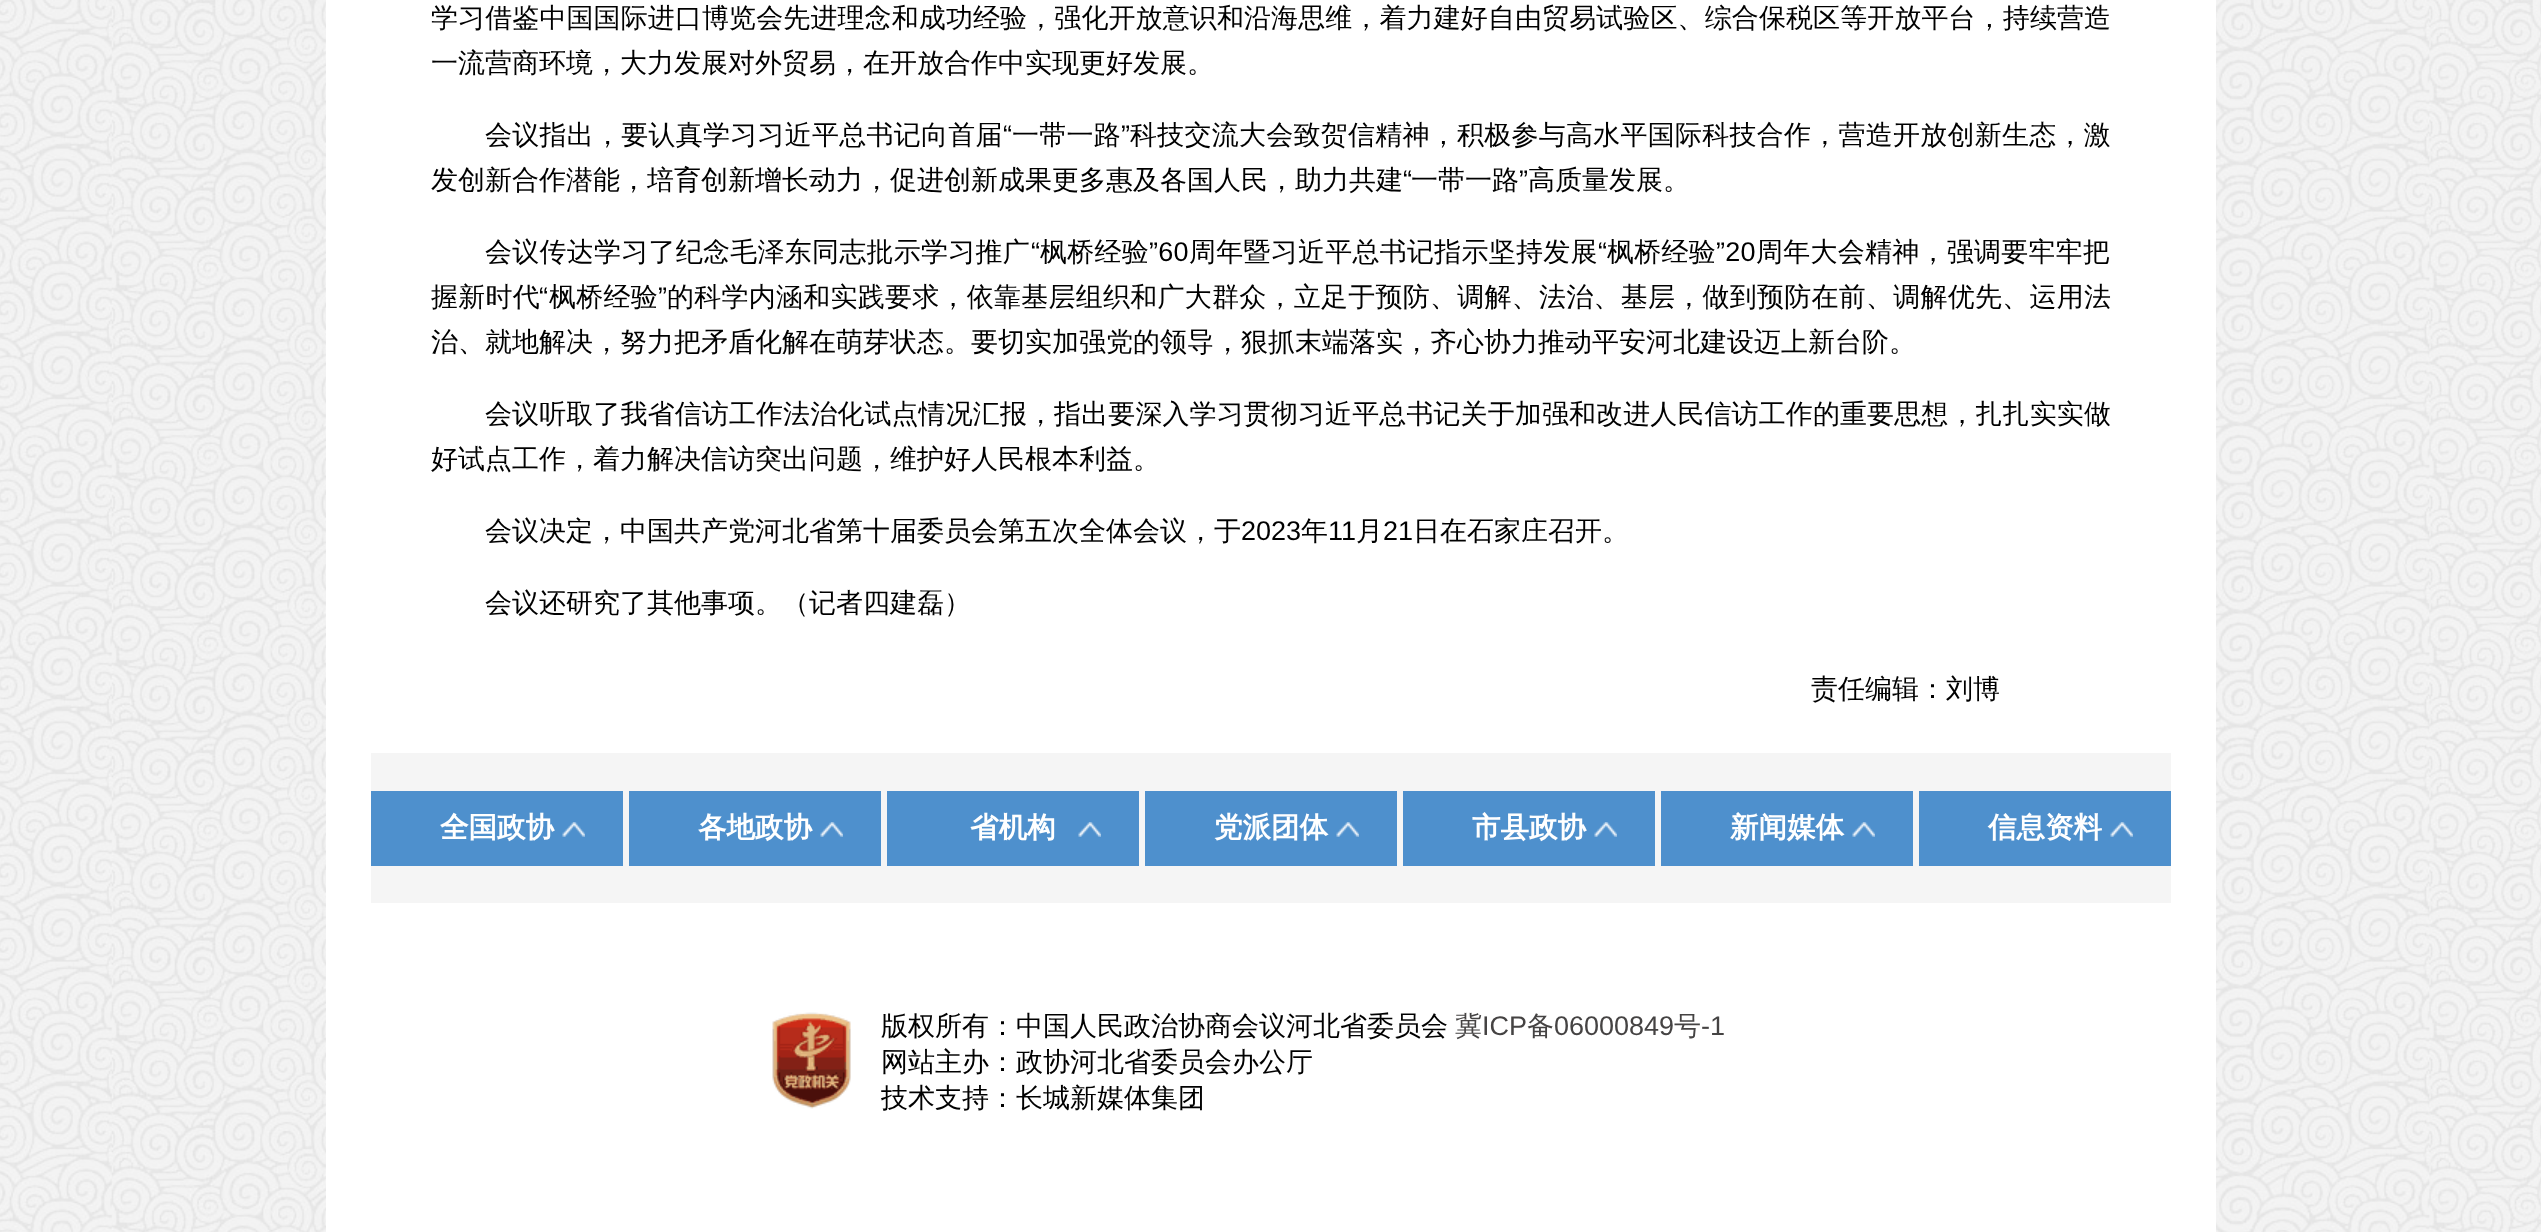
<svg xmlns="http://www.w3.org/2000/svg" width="2541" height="1232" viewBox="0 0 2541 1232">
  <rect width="100%" height="100%" fill="#fff"/>
  <image x="0" y="0" width="2541" height="1232" href="img/1.png"/>
  <path d="M326 0h1890v1232H326z" fill="#fff"/>
  <path d="M371 753h1800v150H371z" fill="#f5f5f5"/>
  <path d="M371 791h252v75H371z" fill="#4e90cd"/>
  <image x="562" y="822" width="23" height="15" href="img/2.png"/>
  <path d="M629 791h252v75H629z" fill="#4e90cd"/>
  <image x="820" y="822" width="23" height="15" href="img/3.png"/>
  <path d="M887 791h252v75H887z" fill="#4e90cd"/>
  <image x="1078" y="822" width="23" height="15" href="img/3.png"/>
  <path d="M1145 791h252v75H1145z" fill="#4e90cd"/>
  <image x="1336" y="822" width="23" height="15" href="img/2.png"/>
  <path d="M1403 791h252v75H1403z" fill="#4e90cd"/>
  <image x="1594" y="822" width="23" height="15" href="img/3.png"/>
  <path d="M1661 791h252v75H1661z" fill="#4e90cd"/>
  <image x="1852" y="822" width="23" height="15" href="img/3.png"/>
  <path d="M1919 791h252v75H1919z" fill="#4e90cd"/>
  <image x="2110" y="822" width="23" height="15" href="img/2.png"/>
  <image x="772" y="1012" width="79" height="97" href="img/4.png"/>
  <text x="431" y="27" font-family="WenQuanYi Zen Hei" font-size="27" font-weight="500" letter-spacing="0.1" fill="#000">学习借鉴中国国际进口博览会先进理念和成功经验，强化开放意识和沿海思维，着力建好自由贸易试验区、综合保税区等开放平台，持续营造</text>
  <text x="431" y="72" font-family="WenQuanYi Zen Hei" font-size="27" font-weight="500" fill="#000">一流营商环境，大力发展对外贸易，在开放合作中实现更好发展。</text>
  <text x="485" y="144" font-family="WenQuanYi Zen Hei" font-size="27" font-weight="500" letter-spacing="0.25" fill="#000">会议指出，要认真学习习近平总书记向首届</text>
  <text x="1003" y="144" font-family="Liberation Sans" font-size="27" letter-spacing="0.25" fill="#000">“</text>
  <text x="1012" y="144" font-family="WenQuanYi Zen Hei" font-size="27" font-weight="500" letter-spacing="0.25" fill="#000">一带一路</text>
  <text x="1121" y="144" font-family="Liberation Sans" font-size="27" letter-spacing="0.25" fill="#000">”</text>
  <text x="1130" y="144" font-family="WenQuanYi Zen Hei" font-size="27" font-weight="500" letter-spacing="0.25" fill="#000">科技交流大会致贺信精神，积极参与高水平国际科技合作，营造开放创新生态，激</text>
  <text x="431" y="189" font-family="WenQuanYi Zen Hei" font-size="27" font-weight="500" fill="#000">发创新合作潜能，培育创新增长动力，促进创新成果更多惠及各国人民，助力共建</text>
  <text x="1403" y="189" font-family="Liberation Sans" font-size="27" fill="#000">“</text>
  <text x="1411" y="189" font-family="WenQuanYi Zen Hei" font-size="27" font-weight="500" fill="#000">一带一路</text>
  <text x="1519" y="189" font-family="Liberation Sans" font-size="27" fill="#000">”</text>
  <text x="1528" y="189" font-family="WenQuanYi Zen Hei" font-size="27" font-weight="500" fill="#000">高质量发展。</text>
  <text x="485" y="261" font-family="WenQuanYi Zen Hei" font-size="27" font-weight="500" letter-spacing="0.25" fill="#000">会议传达学习了纪念毛泽东同志批示学习推广</text>
  <text x="1031" y="261" font-family="Liberation Sans" font-size="27" letter-spacing="0.25" fill="#000">“</text>
  <text x="1040" y="261" font-family="WenQuanYi Zen Hei" font-size="27" font-weight="500" letter-spacing="0.25" fill="#000">枫桥经验</text>
  <text x="1149" y="261" font-family="Liberation Sans" font-size="27" letter-spacing="0.25" fill="#000">”60</text>
  <text x="1189" y="261" font-family="WenQuanYi Zen Hei" font-size="27" font-weight="500" letter-spacing="0.25" fill="#000">周年暨习近平总书记指示坚持发展</text>
  <text x="1598" y="261" font-family="Liberation Sans" font-size="27" letter-spacing="0.25" fill="#000">“</text>
  <text x="1607" y="261" font-family="WenQuanYi Zen Hei" font-size="27" font-weight="500" letter-spacing="0.25" fill="#000">枫桥经验</text>
  <text x="1716" y="261" font-family="Liberation Sans" font-size="27" letter-spacing="0.25" fill="#000">”20</text>
  <g font-family="WenQuanYi Zen Hei" font-size="27" font-weight="500" letter-spacing="0.25" fill="#000">
    <text x="1756" y="261">周年大会精神，强调要牢牢把</text>
    <text x="431" y="306">握新时代</text>
  </g>
  <text x="539" y="306" font-family="Liberation Sans" font-size="27" letter-spacing="0.25" fill="#000">“</text>
  <text x="549" y="306" font-family="WenQuanYi Zen Hei" font-size="27" font-weight="500" letter-spacing="0.25" fill="#000">枫桥经验</text>
  <text x="658" y="306" font-family="Liberation Sans" font-size="27" letter-spacing="0.25" fill="#000">”</text>
  <text x="667" y="306" font-family="WenQuanYi Zen Hei" font-size="27" font-weight="500" letter-spacing="0.25" fill="#000">的科学内涵和实践要求，依靠基层组织和广大群众，立足于预防、调解、法治、基层，做到预防在前、调解优先、运用法</text>
  <text x="431" y="351" font-family="WenQuanYi Zen Hei" font-size="27" font-weight="500" fill="#000">治、就地解决，努力把矛盾化解在萌芽状态。要切实加强党的领导，狠抓末端落实，齐心协力推动平安河北建设迈上新台阶。</text>
  <text x="485" y="423" font-family="WenQuanYi Zen Hei" font-size="27" font-weight="500" letter-spacing="0.1" fill="#000">会议听取了我省信访工作法治化试点情况汇报，指出要深入学习贯彻习近平总书记关于加强和改进人民信访工作的重要思想，扎扎实实做</text>
  <g font-family="WenQuanYi Zen Hei" font-size="27" font-weight="500" fill="#000">
    <text x="431" y="468">好试点工作，着力解决信访突出问题，维护好人民根本利益。</text>
    <text x="485" y="540">会议决定，中国共产党河北省第十届委员会第五次全体会议，于</text>
  </g>
  <text x="1241" y="540" font-family="Liberation Sans" font-size="27" fill="#000">2023</text>
  <text x="1301" y="540" font-family="WenQuanYi Zen Hei" font-size="27" font-weight="500" fill="#000">年</text>
  <text x="1328" y="540" font-family="Liberation Sans" font-size="27" fill="#000">11</text>
  <text x="1356" y="540" font-family="WenQuanYi Zen Hei" font-size="27" font-weight="500" fill="#000">月</text>
  <text x="1383" y="540" font-family="Liberation Sans" font-size="27" fill="#000">21</text>
  <g font-family="WenQuanYi Zen Hei" font-size="27" font-weight="500" fill="#000">
    <text x="1413" y="540">日在石家庄召开。</text>
    <text x="485" y="612">会议还研究了其他事项。（记者四建磊）</text>
    <text x="1811" y="698">责任编辑：刘博</text>
  </g>
  <g font-family="WenQuanYi Zen Hei" font-size="28.5" font-weight="bold" fill="#fff">
    <text x="440" y="837">全国政协</text>
    <text x="698" y="837">各地政协</text>
    <text x="970" y="837">省机构</text>
    <text x="1214" y="837">党派团体</text>
    <text x="1472" y="837">市县政协</text>
    <text x="1730" y="837">新闻媒体</text>
    <text x="1988" y="837">信息资料</text>
  </g>
  <text x="881" y="1035" font-family="WenQuanYi Zen Hei" font-size="27" font-weight="500" fill="#000">版权所有：中国人民政治协商会议河北省委员会</text>
  <text x="1455" y="1035" font-family="WenQuanYi Zen Hei" font-size="27" font-weight="500" fill="#454343">冀</text>
  <text x="1482" y="1035" font-family="Liberation Sans" font-size="27" fill="#454343">ICP</text>
  <text x="1527" y="1035" font-family="WenQuanYi Zen Hei" font-size="27" font-weight="500" fill="#454343">备</text>
  <text x="1554" y="1035" font-family="Liberation Sans" font-size="27" fill="#454343">06000849</text>
  <text x="1674" y="1035" font-family="WenQuanYi Zen Hei" font-size="27" font-weight="500" fill="#454343">号</text>
  <text x="1701" y="1035" font-family="Liberation Sans" font-size="27" fill="#454343">-1</text>
  <g font-family="WenQuanYi Zen Hei" font-size="27" font-weight="500" fill="#000">
    <text x="881" y="1071">网站主办：政协河北省委员会办公厅</text>
    <text x="881" y="1107">技术支持：长城新媒体集团</text>
  </g>
</svg>
